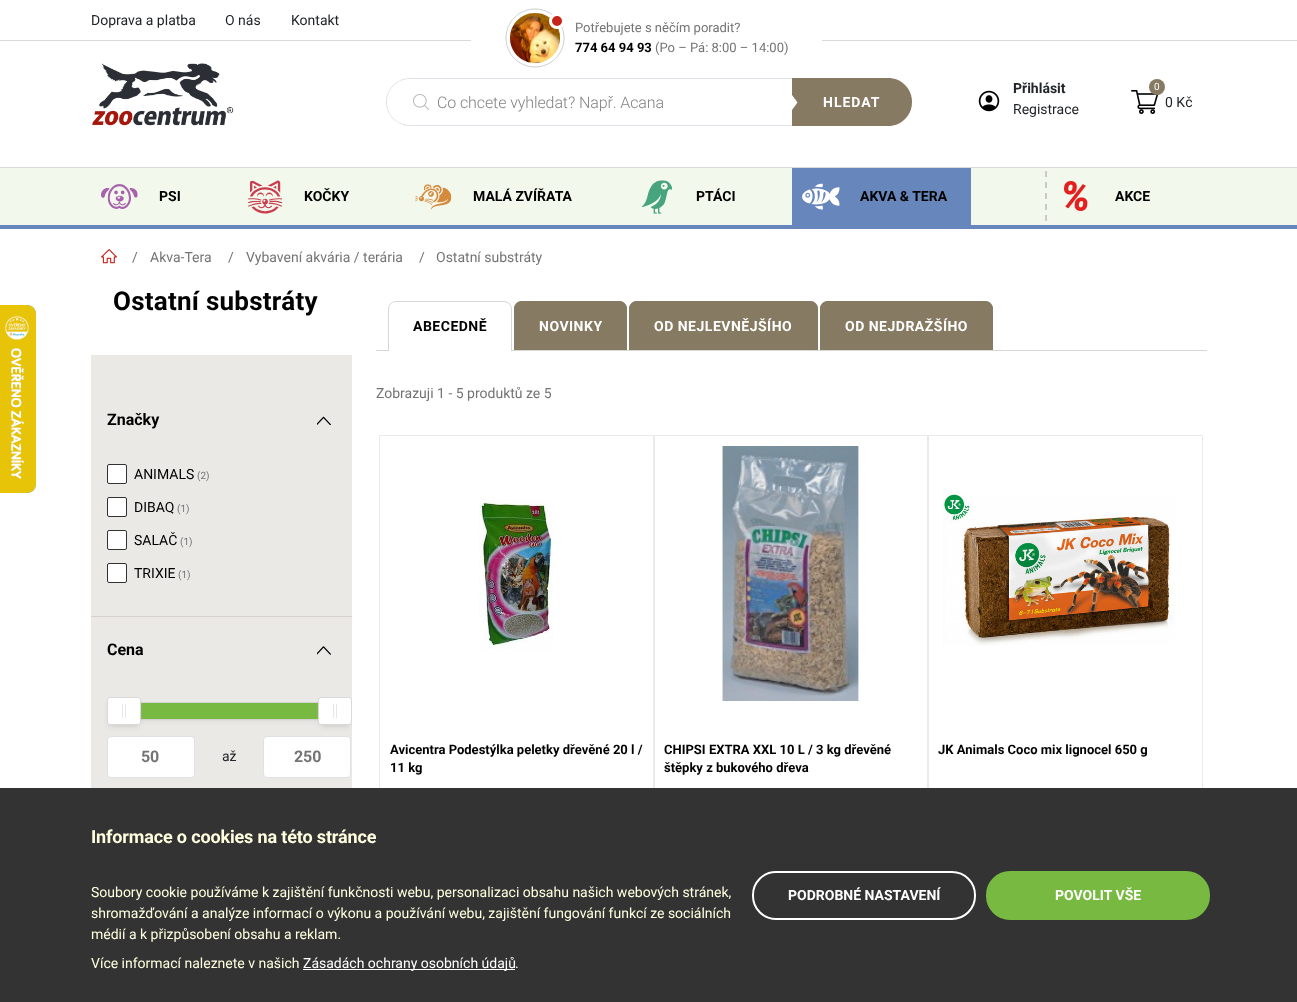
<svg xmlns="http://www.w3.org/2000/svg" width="1297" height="1002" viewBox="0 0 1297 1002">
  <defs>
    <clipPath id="clip1"><path d="M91 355h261v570H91z"/></clipPath>
  </defs>
  <rect width="100%" height="100%" fill="#fff"/>
  <image x="0" y="305" width="36" height="188" href="img/1.png"/>
  <path d="M0 40h1297v1H0z" fill="#d9d9d9"/>
  <path d="M471 40h351v1H471z" fill="#fff"/>
  <path d="M535 67C551 67 564 54 564 38C564 22 551 9 535 9C519 9 506 22 506 38C506 54 519 67 535 67Z" fill="none" stroke="#cecece"/>
  <image x="510" y="13" width="50" height="50" href="img/2.png"/>
  <circle cx="557" cy="21" r="6.5" fill="#c62319" stroke="#fff" stroke-width="3"/>
  <image x="92" y="63" width="142" height="63" href="img/3.png"/>
  <image x="413" y="94" width="16" height="16" href="img/4.png"/>
  <path d="M410 78H792V126H410C397 126 386 115 386 102C386 89 397 78 410 78ZM410 79H792V125H410C397 125 387 115 387 102C387 89 397 79 410 79Z" fill="#dee2e6" fill-rule="evenodd"/>
  <path d="M792 78H888C901.5 78 912 88.5 912 102C912 115.5 901.5 126 888 126H792Z" fill="#867a63"/>
  <path d="M797.5 102.5L792 110V95Z" fill="#fff" fill-rule="evenodd"/>
  <image x="978" y="90" width="22" height="22" href="img/5.png"/>
  <image x="1131" y="90" width="28" height="24" href="img/6.png"/>
  <circle cx="1157" cy="87" r="8" fill="#867a63"/>
  <path d="M0 168h1297v57H0z" fill="#f2f9ec"/>
  <path d="M0 167h1297v1H0z" fill="#d9d9d9"/>
  <path d="M0 225h1297v4H0z" fill="#6787bc"/>
  <image x="101" y="184" width="37" height="25" href="img/7.png"/>
  <image x="248" y="180" width="35" height="34" href="img/8.png"/>
  <image x="415" y="184" width="37" height="26" href="img/9.png"/>
  <image x="641" y="180" width="31" height="34" href="img/10.png"/>
  <path d="M792 168h179v57H792z" fill="#6787bc"/>
  <image x="802" y="183" width="38" height="27" href="img/11.png"/>
  <path d="M1046 171V221" fill="none" stroke="#cacaca" stroke-width="2" stroke-dasharray="6 5"/>
  <image x="1064" y="181" width="24" height="30" href="img/12.png"/>
  <image x="101" y="249" width="16" height="15" href="img/13.png"/>
  <path d="M91 355h261v433H91z" fill="#ebe9e5"/>
  <path d="M91 616h261v1H91z" fill="#d5d2cc"/>
  <image x="317" y="416" width="14" height="9" href="img/14.png"/>
  <rect x="107.5" y="464.5" width="19" height="19" rx="1.5" fill="#fff" stroke="#333"/>
  <rect x="107.5" y="497.5" width="19" height="19" rx="1.5" fill="#fff" stroke="#333"/>
  <rect x="107.5" y="530.5" width="19" height="19" rx="1.5" fill="#fff" stroke="#333"/>
  <rect x="107.5" y="563.5" width="19" height="19" rx="1.5" fill="#fff" stroke="#333"/>
  <image x="317" y="646" width="14" height="9" href="img/15.png"/>
  <path d="M128 710h203v8H128z" fill="#bbb" filter="blur(3px)"/>
  <path d="M123.5 702.5h212v17H123.5z" fill="none" stroke="#d3d3d3"/>
  <path d="M141 703h177v16H141z" fill="#78b941"/>
  <path d="M110 703h28v22H110z" fill="#bbb" filter="blur(3px)"/>
  <rect x="107.5" y="697.5" width="33" height="27" rx="2.5" fill="#fff" stroke="#d9d9d9"/>
  <path d="M122 704h1v14H122z" fill="#e8e7e6"/>
  <path d="M125 704h1v14H125z" fill="#e8e7e6"/>
  <g clip-path="url(#clip1)">
    <path d="M321 703h28v22H321z" fill="#bbb" filter="blur(3px)"/>
  </g>
  <rect x="318.5" y="697.5" width="33" height="27" rx="2.5" fill="#fff" stroke="#d9d9d9"/>
  <path d="M333 704h1v14H333z" fill="#e8e7e6"/>
  <path d="M336 704h1v14H336z" fill="#e8e7e6"/>
  <rect x="107.5" y="736.5" width="87" height="41" rx="3.5" fill="#fff" stroke="#dee2e6"/>
  <rect x="263.5" y="736.5" width="87" height="41" rx="3.5" fill="#fff" stroke="#dee2e6"/>
  <path d="M376 350h831v1H376z" fill="#d6d6d6"/>
  <path d="M396 301H504C508 301 512 305 512 309V350H388V309C388 305 392 301 396 301ZM396 302H504C508 302 511 305 511 309V350H389V309C389 305 392 302 396 302Z" fill="#d6d6d6" fill-rule="evenodd"/>
  <path d="M389 350h122v1H389z" fill="#fff"/>
  <path d="M522 301H619C623.5 301 627 304.5 627 309V350H514V309C514 304.5 517.5 301 522 301Z" fill="#867a63"/>
  <path d="M522 301H619C623 301 627 305 627 309V350H514V309C514 305 518 301 522 301ZM522 302H619C623 302 626 305 626 309V350H515V309C515 305 518 302 522 302Z" fill="#867a63" fill-rule="evenodd"/>
  <path d="M637 301H810C814.5 301 818 304.5 818 309V350H629V309C629 304.5 632.5 301 637 301Z" fill="#867a63"/>
  <path d="M637 301H810C814 301 818 305 818 309V350H629V309C629 305 633 301 637 301ZM637 302H810C814 302 817 305 817 309V350H630V309C630 305 633 302 637 302Z" fill="#867a63" fill-rule="evenodd"/>
  <path d="M828 301H985C989.5 301 993 304.5 993 309V350H820V309C820 304.5 823.5 301 828 301Z" fill="#867a63"/>
  <path d="M828 301H985C989 301 993 305 993 309V350H820V309C820 305 824 301 828 301ZM828 302H985C989 302 992 305 992 309V350H821V309C821 305 824 302 828 302Z" fill="#867a63" fill-rule="evenodd"/>
  <image x="479" y="499" width="74" height="151" href="img/16.png"/>
  <path d="M379.5 435.5h275v553H379.5z" fill="none" stroke="#eaeaea"/>
  <image x="721" y="446" width="139" height="255" href="img/17.png"/>
  <path d="M653.5 435.5h275v553H653.5z" fill="none" stroke="#eaeaea"/>
  <image x="942" y="491" width="233" height="155" href="img/18.png"/>
  <path d="M927.5 435.5h275v553H927.5z" fill="none" stroke="#eaeaea"/>
  <path d="M0 788h1297v214H0z" fill="#333"/>
  <path d="M303 969h212v1H303z" fill="#fff"/>
  <rect x="753" y="872" width="222" height="47" rx="23" fill="none" stroke="#fff" stroke-width="2"/>
  <rect x="987" y="872" width="222" height="47" rx="23" fill="#78b941" stroke="#78b941" stroke-width="2"/>
  <g font-family="Roboto" font-size="14" fill="#212529">
    <text x="91" y="25">Doprava a platba</text>
    <text x="225" y="25">O nás</text>
    <text x="291" y="25">Kontakt</text>
  </g>
  <text x="575" y="32" font-family="Roboto" font-size="13" fill="#747474">Potřebujete s něčím poradit?</text>
  <text x="575" y="52" font-family="Roboto" font-size="13" font-weight="bold" fill="#000">774 64 94 93</text>
  <text x="655" y="52" font-family="Roboto" font-size="13" fill="#747474">(Po – Pá: 8:00 – 14:00)</text>
  <text x="437" y="108" font-family="Roboto" font-size="16" font-weight="300" letter-spacing="-0.1" fill="#838383">Co chcete vyhledat? Např. Acana</text>
  <text x="823" y="107" font-family="Roboto" font-size="14" font-weight="bold" letter-spacing="1" fill="#fff">HLEDAT</text>
  <text x="1013" y="93" font-family="Roboto" font-size="14" font-weight="bold" fill="#212529">Přihlásit</text>
  <text x="1013" y="114" font-family="Roboto" font-size="14" fill="#212529">Registrace</text>
  <text x="1154" y="90" font-family="Roboto" font-size="10" fill="#fff">0</text>
  <text x="1165" y="107" font-family="Roboto" font-size="14" fill="#212529">0 Kč</text>
  <g font-family="Roboto" font-size="14" font-weight="bold" fill="#000">
    <text x="159" y="201">PSI</text>
    <text x="304" y="201">KOČKY</text>
    <text x="473" y="201">MALÁ ZVÍŘATA</text>
    <text x="696" y="201">PTÁCI</text>
    <text x="860" y="201">AKVA &amp; TERA</text>
    <text x="1115" y="201">AKCE</text>
  </g>
  <g font-family="Roboto" font-size="14" fill="#747474">
    <text x="132" y="262">/</text>
    <text x="150" y="262">Akva-Tera</text>
    <text x="228" y="262">/</text>
    <text x="246" y="262">Vybavení akvária / terária</text>
    <text x="419" y="262">/</text>
    <text x="436" y="262">Ostatní substráty</text>
  </g>
  <text x="113" y="310" font-family="Roboto" font-size="26" font-weight="bold" letter-spacing="0.25" fill="#000">Ostatní substráty</text>
  <text x="107" y="425" font-family="Roboto" font-size="16" font-weight="bold" fill="#000">Značky</text>
  <text x="134" y="479" font-family="Roboto" font-size="14" fill="#000">ANIMALS</text>
  <text x="197" y="479" font-family="Roboto" font-size="10" fill="#747474">(2)</text>
  <text x="134" y="512" font-family="Roboto" font-size="14" fill="#000">DIBAQ</text>
  <text x="177" y="512" font-family="Roboto" font-size="10" fill="#747474">(1)</text>
  <text x="134" y="545" font-family="Roboto" font-size="14" fill="#000">SALAČ</text>
  <text x="180" y="545" font-family="Roboto" font-size="10" fill="#747474">(1)</text>
  <text x="134" y="578" font-family="Roboto" font-size="14" fill="#000">TRIXIE</text>
  <text x="178" y="578" font-family="Roboto" font-size="10" fill="#747474">(1)</text>
  <text x="107" y="655" font-family="Roboto" font-size="16" font-weight="bold" fill="#000">Cena</text>
  <text x="141" y="762" font-family="Roboto" font-size="16" font-weight="bold" letter-spacing="-0.1" fill="#747474">50</text>
  <text x="222" y="761" font-family="Roboto" font-size="14" fill="#212529">až</text>
  <text x="294" y="762" font-family="Roboto" font-size="16" font-weight="bold" letter-spacing="-0.1" fill="#747474">250</text>
  <text x="413" y="331" font-family="Roboto" font-size="14" font-weight="bold" letter-spacing="0.5" fill="#000">ABECEDNĚ</text>
  <g font-family="Roboto" font-size="14" font-weight="bold" letter-spacing="0.5" fill="#fff">
    <text x="539" y="331">NOVINKY</text>
    <text x="654" y="331">OD NEJLEVNĚJŠÍHO</text>
    <text x="845" y="331">OD NEJDRAŽŠÍHO</text>
  </g>
  <text x="376" y="398" font-family="Roboto" font-size="14" fill="#747474">Zobrazuji 1 - 5 produktů ze 5</text>
  <g font-family="Roboto" font-size="13" font-weight="bold" fill="#000">
    <text x="390" y="754">Avicentra Podestýlka peletky dřevěné 20 l /</text>
    <text x="390" y="772">11 kg</text>
    <text x="664" y="754">CHIPSI EXTRA XXL 10 L / 3 kg dřevěné</text>
    <text x="664" y="772">štěpky z bukového dřeva</text>
    <text x="938" y="754">JK Animals Coco mix lignocel 650 g</text>
  </g>
  <text x="91" y="843" font-family="Roboto" font-size="18" font-weight="bold" letter-spacing="-0.15" fill="#ffffdf">Informace o cookies na této stránce</text>
  <g font-family="Roboto" font-size="14" fill="#ffffdf">
    <text x="91" y="897">Soubory cookie používáme k zajištění funkčnosti webu, personalizaci obsahu našich webových stránek,</text>
    <text x="91" y="918">shromažďování a analýze informací o výkonu a používání webu, zajištění fungování funkcí ze sociálních</text>
    <text x="91" y="939">médií a k přizpůsobení obsahu a reklam.</text>
    <text x="91" y="968">Více informací naleznete v našich</text>
  </g>
  <text x="303" y="968" font-family="Roboto" font-size="14" fill="#fff">Zásadách ochrany osobních údajů</text>
  <text x="515" y="968" font-family="Roboto" font-size="14" fill="#ffffdf">.</text>
  <g font-family="Roboto" font-size="14" font-weight="bold" fill="#fff">
    <text x="788" y="900">PODROBNÉ NASTAVENÍ</text>
    <text x="1055" y="900">POVOLIT VŠE</text>
  </g>
</svg>
